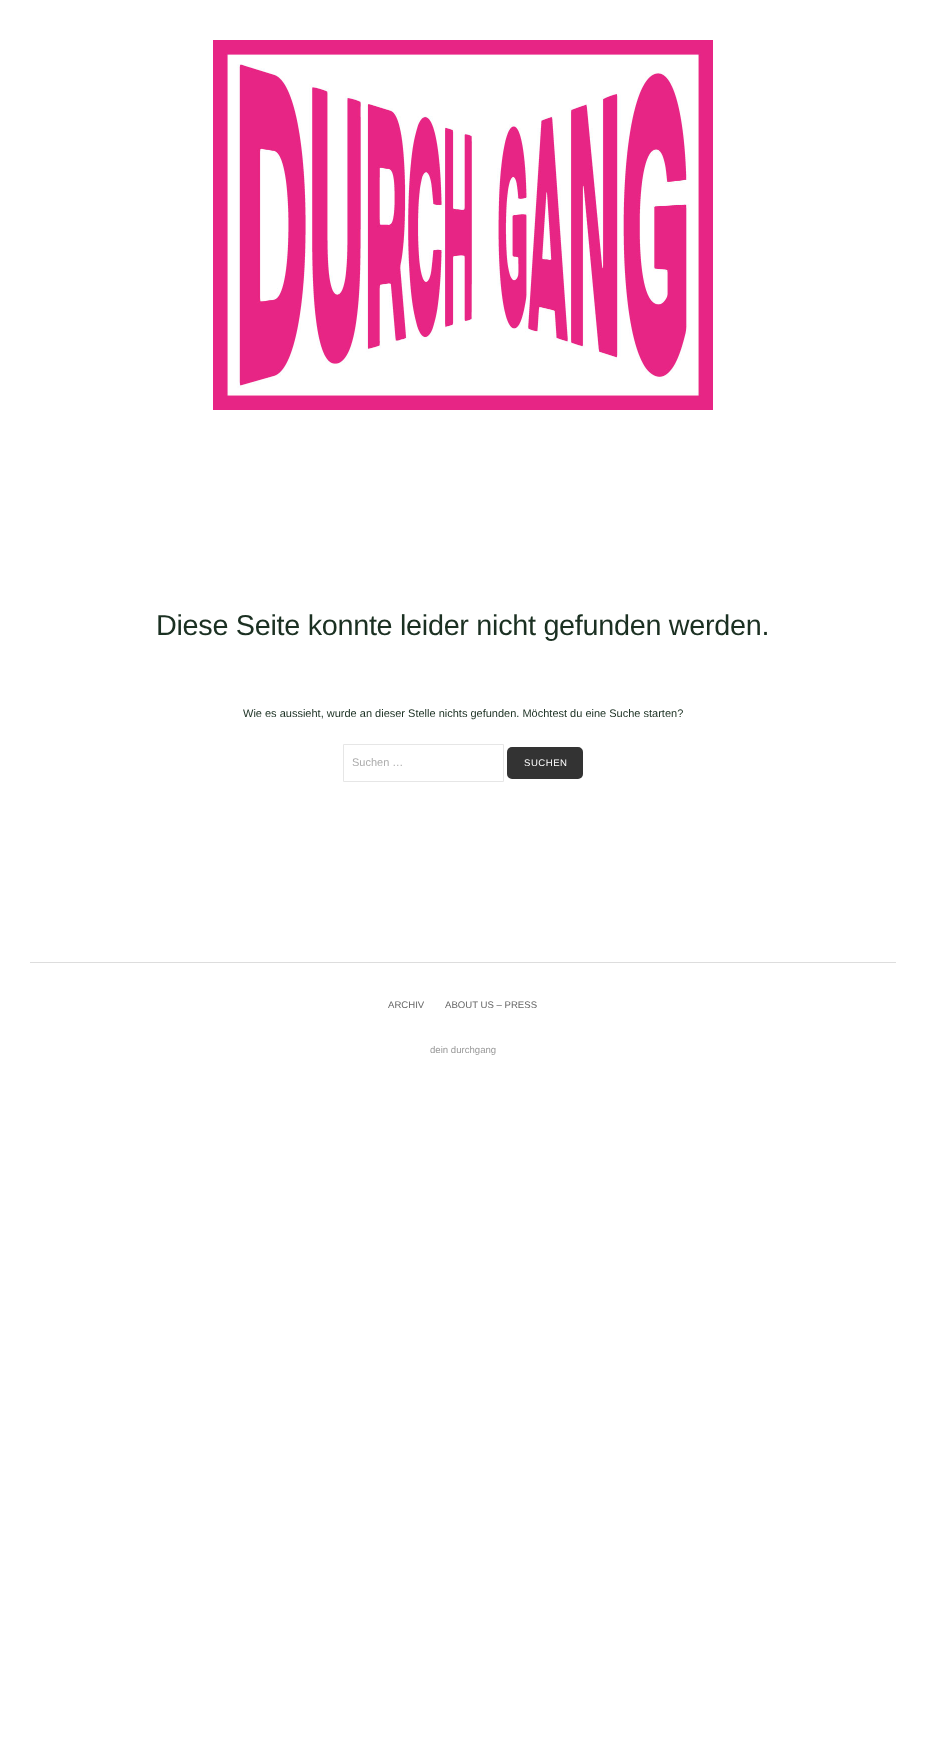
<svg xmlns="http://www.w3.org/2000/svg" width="926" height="1744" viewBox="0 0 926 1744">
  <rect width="100%" height="100%" fill="#fff"/>
  <image x="213" y="40" width="500" height="370" href="img/1.png"/>
  <path d="M343.5 744.5h160v37H343.5z" fill="none" stroke="#e6e6e6"/>
  <rect x="507" y="747" width="76" height="32" rx="5" fill="#333"/>
  <path d="M30 962h866v1H30z" fill="#ddd"/>
  <text x="156" y="635" font-family="Liberation Sans" font-size="28.8" letter-spacing="-0.3" fill="#1b3022">Diese Seite konnte leider nicht gefunden werden.</text>
  <text x="243" y="717" font-family="Liberation Sans" font-size="11" fill="#1b3022">Wie es aussieht, wurde an dieser Stelle nichts gefunden. Möchtest du eine Suche starten?</text>
  <text x="352" y="766" font-family="Liberation Sans" font-size="11" fill="#acacac">Suchen …</text>
  <text x="524" y="766" font-family="Liberation Sans" font-size="9.6" letter-spacing="0.5" fill="#fff">SUCHEN</text>
  <g font-family="Liberation Sans" font-size="9.6" fill="#666">
    <text x="388" y="1008">ARCHIV</text>
    <text x="445" y="1008">ABOUT US – PRESS</text>
  </g>
  <text x="430" y="1053" font-family="Liberation Sans" font-size="9.6" fill="#999">dein durchgang</text>
</svg>
